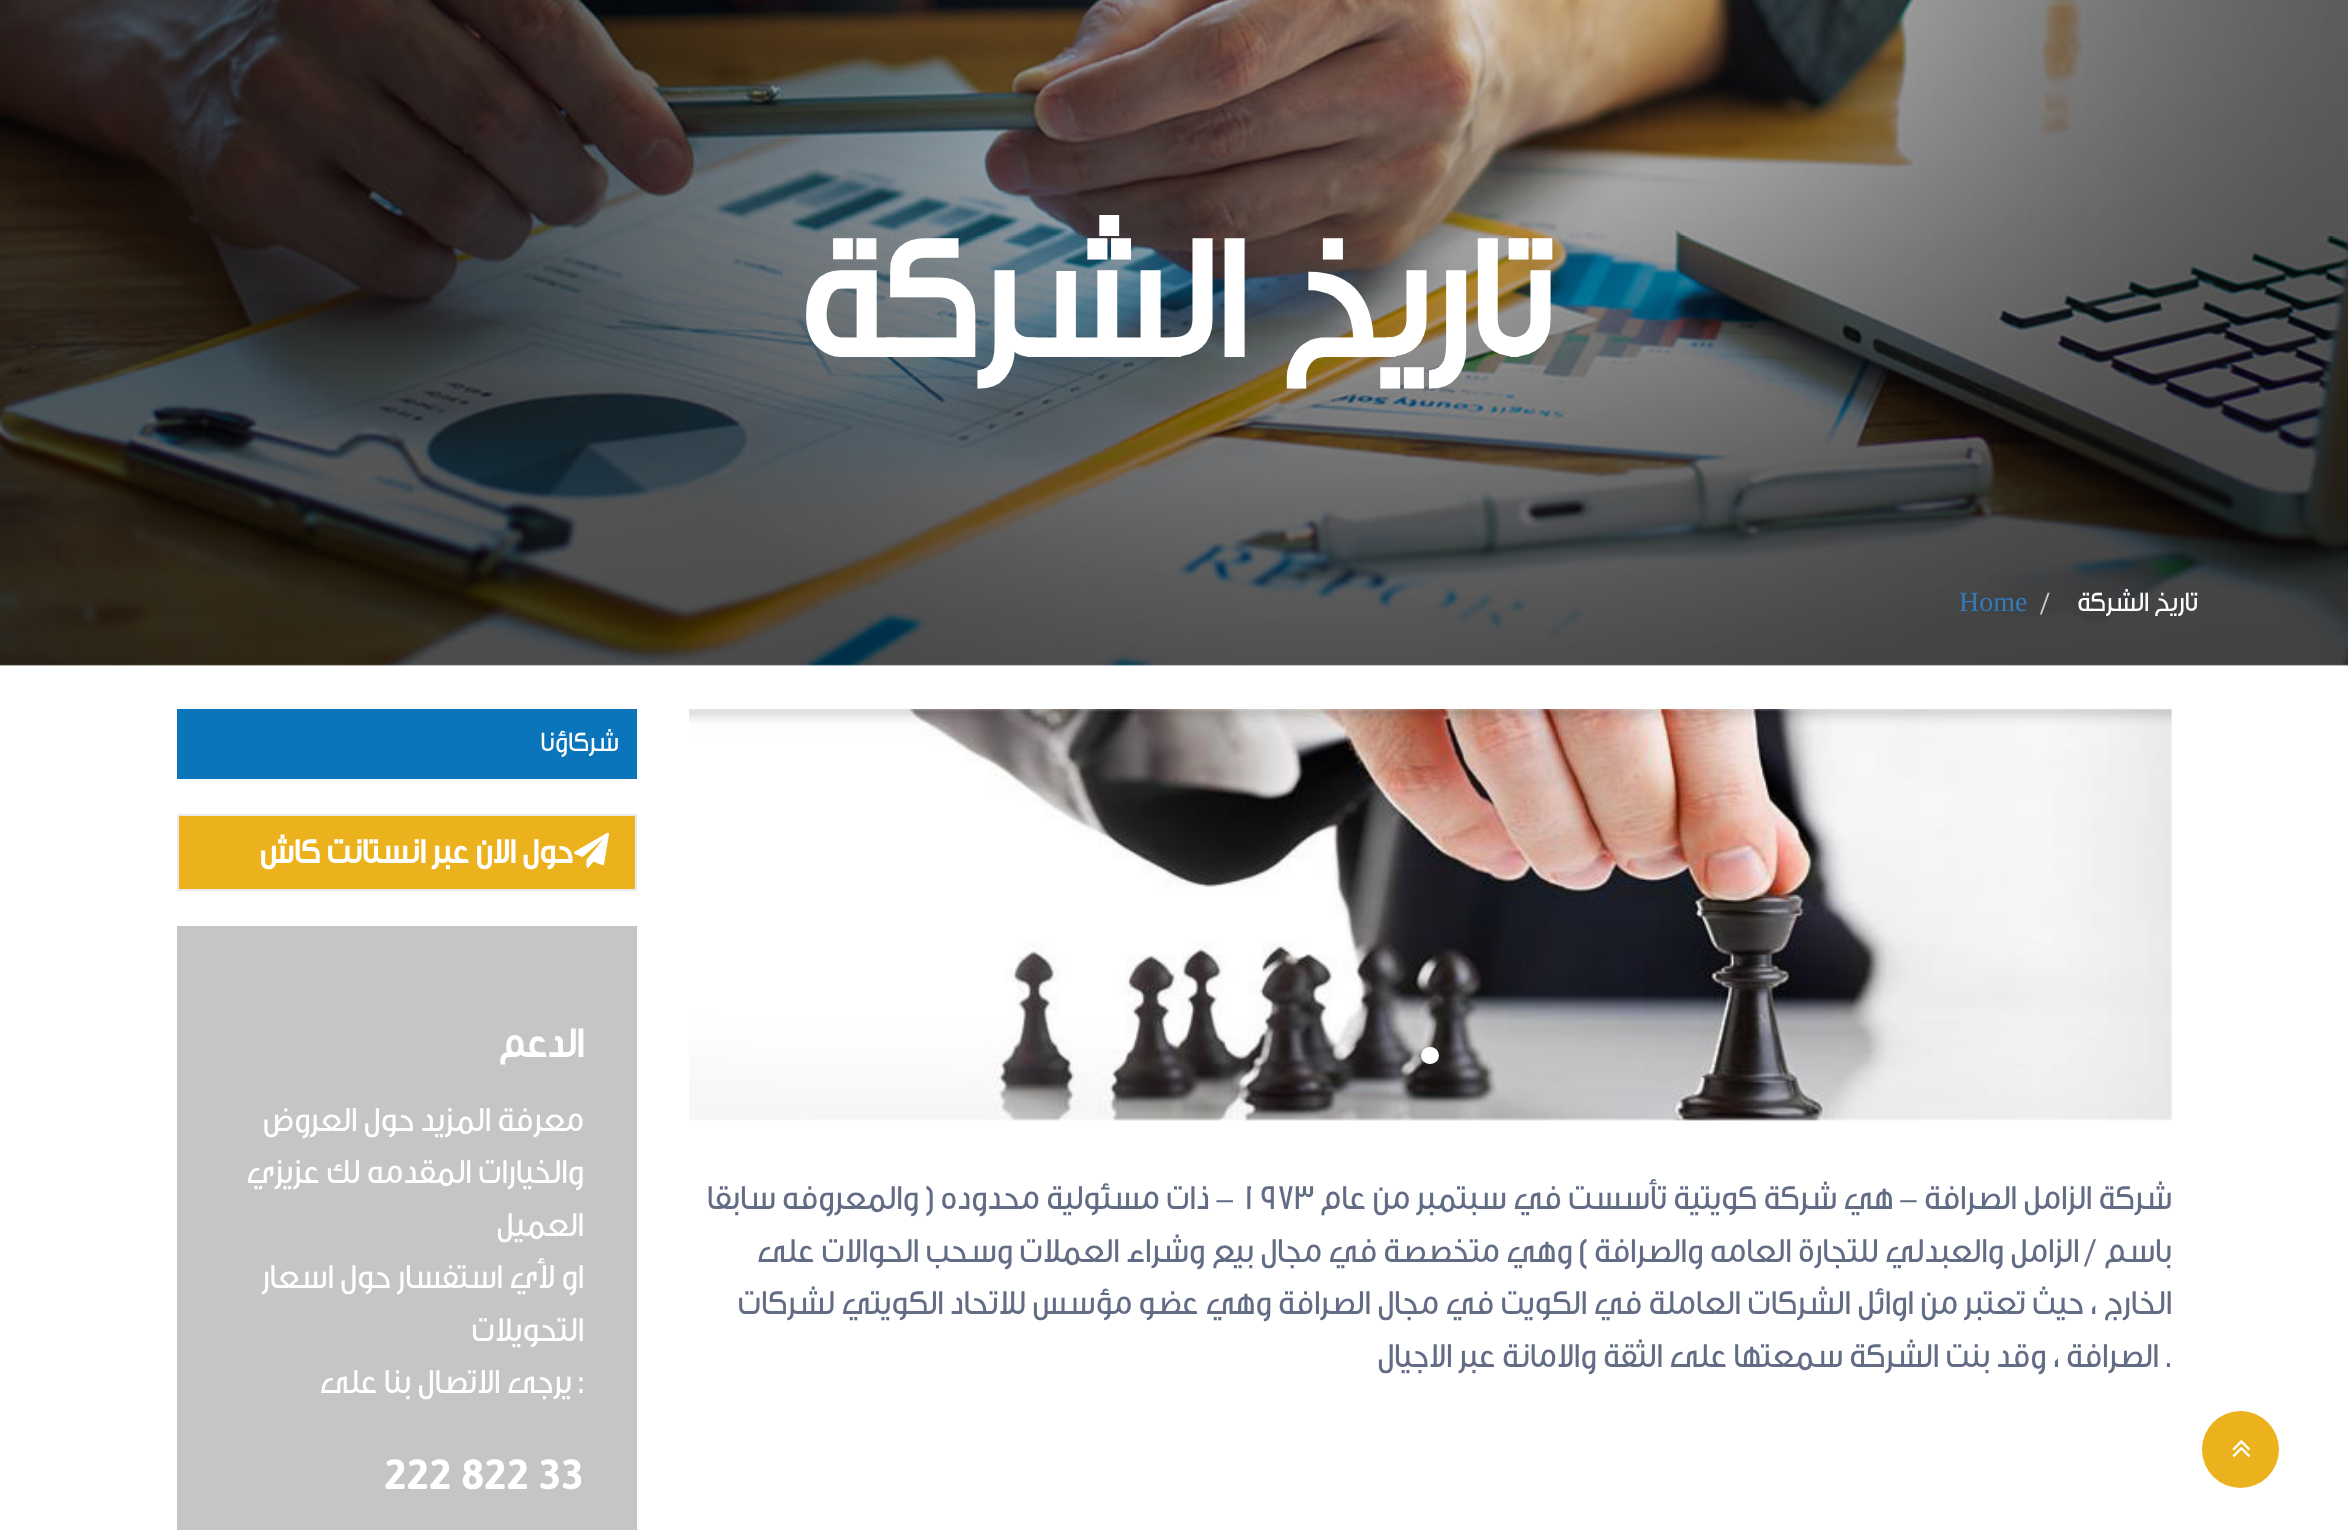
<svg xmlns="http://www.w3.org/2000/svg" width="2348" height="1530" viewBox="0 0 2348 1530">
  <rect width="100%" height="100%" fill="#fff"/>
  <image x="0" y="0" width="2348" height="666" href="img/1.png"/>
  <circle cx="2240.5" cy="1449.5" r="38.5" fill="#ecb21d"/>
  <image x="2232" y="1440" width="19" height="17" href="img/2.png"/>
  <image x="689" y="709" width="1483" height="412" href="img/3.png"/>
  <rect x="1421" y="1047" width="18" height="17" rx="8.5" fill="#fff"/>
  <path d="M177 709h460v70H177z" fill="#0b75bb"/>
  <path d="M178 815h458v75H178z" fill="#ecb21d" stroke="#eaeaea" stroke-width="2"/>
  <image x="574" y="832" width="35" height="36" href="img/4.png"/>
  <path d="M177 926h460v604H177z" fill="#c5c5c5"/>
  <text x="1553" y="357" font-family="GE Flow" font-size="175" font-weight="bold" direction="rtl" fill="#fff">تاريخ الشركة</text>
  <text x="2198" y="611" font-family="GE Flow" font-size="28" direction="rtl" fill="#fff">تاريخ الشركة</text>
  <text x="2041" y="611" font-family="GE Flow" font-size="28" fill="#ccc">/</text>
  <text x="1959" y="611" font-family="Liberation Serif" font-size="28" fill="#337ab7">Home</text>
  <text x="2172" y="1209" font-family="GE Flow" font-size="35" direction="rtl" fill="#626c84">شركة الزامل الصرافة - هي شركة كويتية تأسست في سبتمبر من عام</text>
  <text x="1240" y="1209" font-family="GE Flow" font-size="35" fill="#626c84">1973</text>
  <g font-family="GE Flow" font-size="35" direction="rtl" fill="#626c84">
    <text x="1234" y="1209">- ذات مسئولية محدوده ( والمعروفه سابقا</text>
    <text x="2172" y="1262">باسم / الزامل والعبدلي للتجارة العامه والصرافة ) وهي متخصصة في مجال بيع وشراء العملات وسحب الحوالات على</text>
    <text x="2172" y="1314">الخارج ، حيث تعتبر من اوائل الشركات العاملة في الكويت في مجال الصرافة وهي عضو مؤسس للاتحاد الكويتي لشركات</text>
  </g>
  <text x="2165" y="1367" font-family="GE Flow" font-size="35" fill="#626c84">.</text>
  <text x="2159" y="1367" font-family="GE Flow" font-size="35" direction="rtl" fill="#626c84">الصرافة ، وقد بنت الشركة سمعتها على الثقة والامانة عبر الاجيال</text>
  <text x="619" y="751" font-family="GE Flow" font-size="28" direction="rtl" fill="#fff">شركاؤنا</text>
  <text x="573" y="863" font-family="GE Flow" font-size="35" font-weight="bold" direction="rtl" fill="#fff">حول الان عبر انستانت كاش</text>
  <text x="584" y="1057" font-family="GE Flow" font-size="42" font-weight="bold" direction="rtl" fill="#fff">الدعم</text>
  <g font-family="GE Flow" font-size="35" direction="rtl" fill="#fff">
    <text x="584" y="1131">معرفة المزيد حول العروض</text>
    <text x="584" y="1183">والخيارات المقدمه لك عزيزي</text>
    <text x="584" y="1236">العميل</text>
    <text x="584" y="1288">او لأي استفسار حول اسعار</text>
    <text x="584" y="1341">التحويلات</text>
  </g>
  <text x="578" y="1393" font-family="GE Flow" font-size="35" fill="#fff">:</text>
  <text x="572" y="1393" font-family="GE Flow" font-size="35" direction="rtl" fill="#fff">يرجى الاتصال بنا على</text>
  <text x="384" y="1489" font-family="Asap" font-size="42" font-weight="bold" fill="#fff">222 822 33</text>
</svg>
